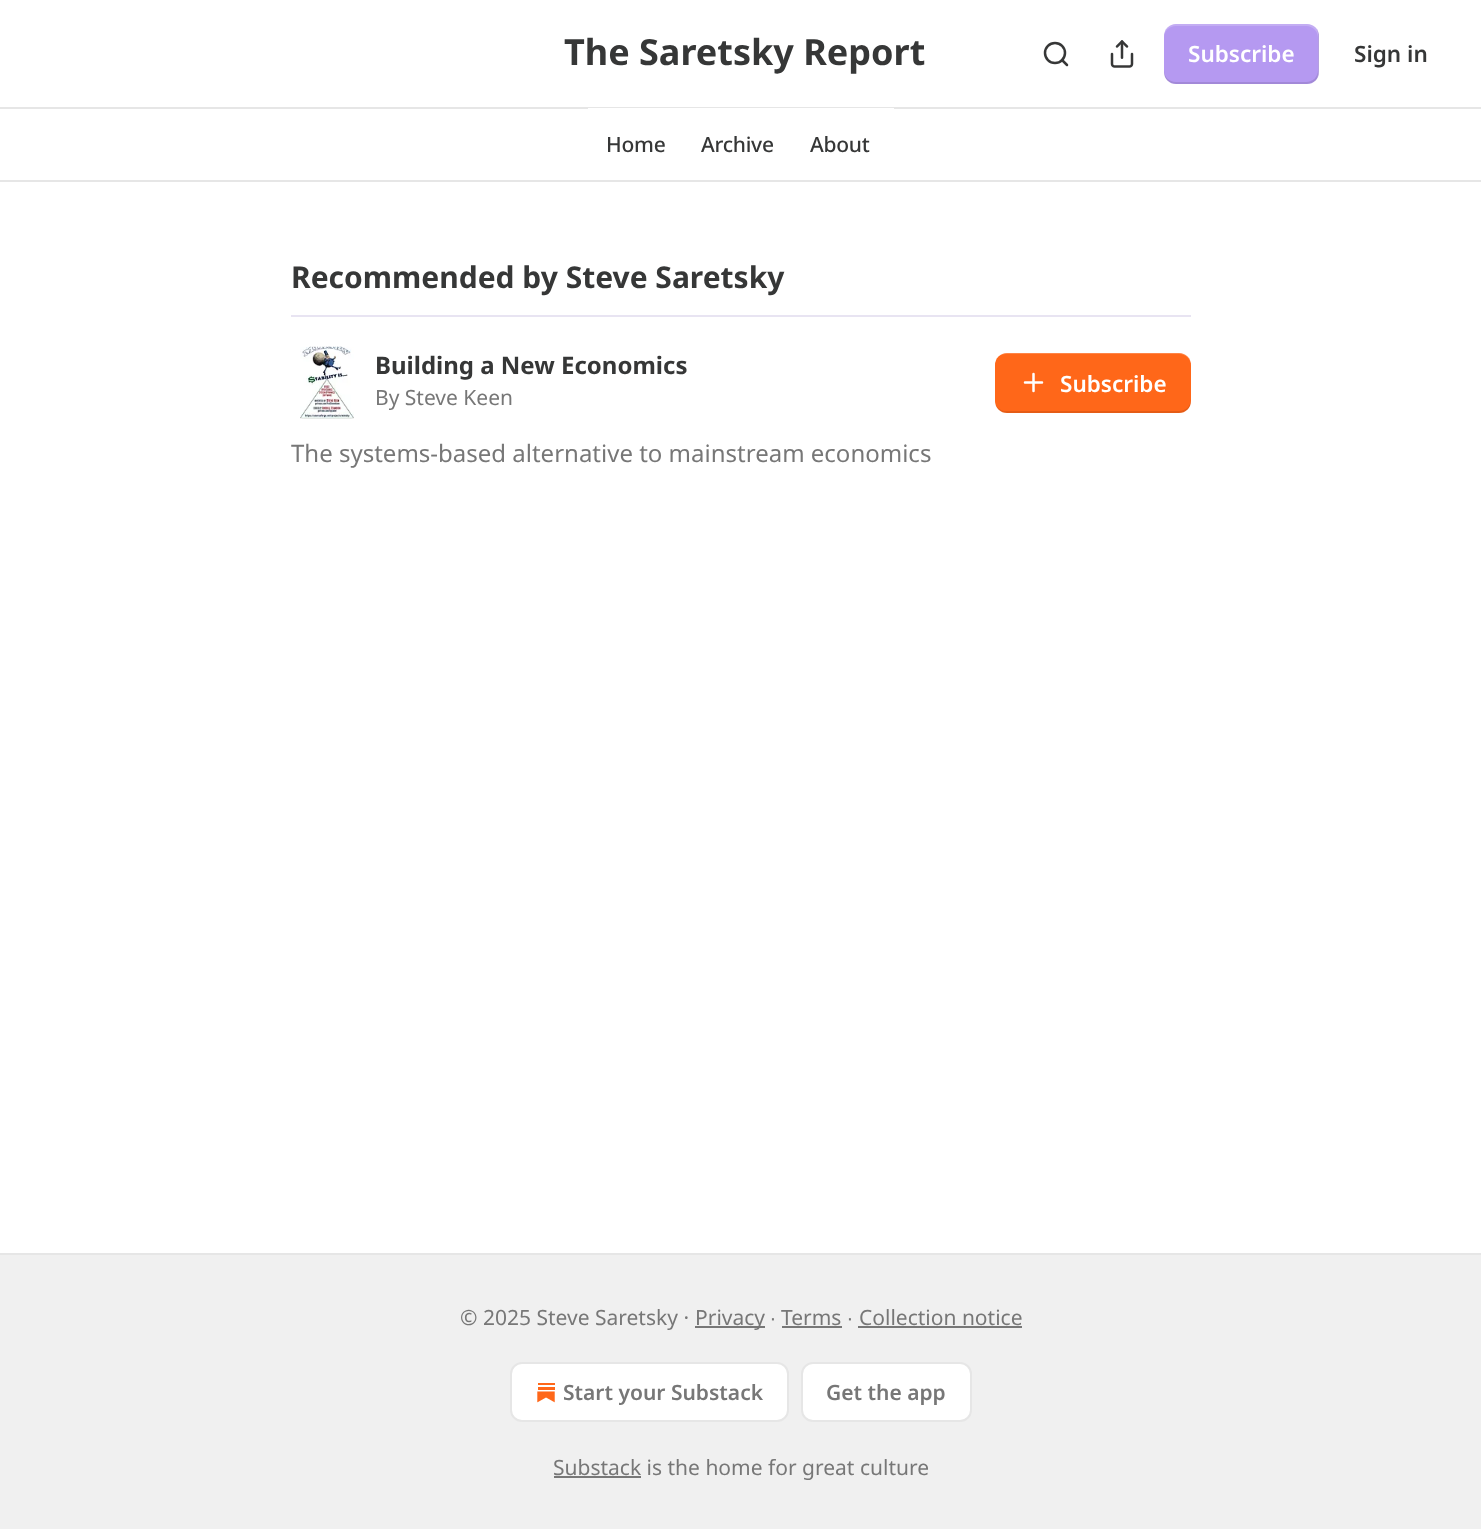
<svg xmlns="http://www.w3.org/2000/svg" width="1481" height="1529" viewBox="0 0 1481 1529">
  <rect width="100%" height="100%" fill="#fff"/>
  <circle cx="1055" cy="53" r="10" fill="none" stroke="#363737" stroke-width="2.5"/>
  <path d="M1067 65L1062 60" fill="none" stroke="#363737" stroke-width="2.5" stroke-linecap="round" stroke-linejoin="round"/>
  <image x="1110" y="40" width="24" height="28" href="img/1.png"/>
  <rect x="1164" y="24" width="155" height="60" rx="12" fill="#b599f1"/>
  <path d="M1164 70V72C1164 79 1169 84 1176 84H1307C1314 84 1319 79 1319 72V36C1319 34 1318 31 1317 29L1318 34V70C1318 77 1313 82 1306 82H1176C1169 82 1164 77 1164 70Z" fill="#0000001a"/>
  <path d="M1176 26H1306C1313 26 1318 31 1318 38V74L1317 79C1318 77 1319 74 1319 72V36C1319 29 1314 24 1307 24H1176C1169 24 1164 29 1164 36V38C1164 31 1169 26 1176 26Z" fill="#ffffff33"/>
  <path d="M0 107h1481v2H0z" fill="#e6e6e6"/>
  <path d="M0 180h1481v2H0z" fill="#e6e6e6"/>
  <path d="M588 108h306v1H588z" fill="#fff"/>
  <path d="M291 315h900v2H291z" fill="#e8e4f2"/>
  <image x="300" y="346" width="54" height="73" href="img/2.png"/>
  <rect x="995" y="353" width="196" height="60" rx="12" fill="#ff6719"/>
  <path d="M996 405C997 410 1002 413 1007 413H1179C1186 413 1191 408 1191 401V399C1191 406 1186 411 1179 411H1006C1002 411 998 409 996 405Z" fill="#0000001a"/>
  <path d="M1006 354H1179C1186 354 1191 359 1191 366V365C1191 358 1186 353 1179 353H1007C1003 353 1000 355 998 357C1000 355 1003 354 1006 354Z" fill="#ffffff33"/>
  <path d="M1025 382.5H1042M1033.5 374V391" fill="none" stroke="#fff" stroke-width="2.5" stroke-linecap="round" stroke-linejoin="round"/>
  <path d="M0 1255h1481v274H0z" fill="#f0f0f0"/>
  <path d="M0 1253h1481v2H0z" fill="#e6e6e6"/>
  <path d="M695 1326h70v2H695z" fill="#777"/>
  <path d="M782 1326h60v2H782z" fill="#777"/>
  <path d="M858 1326h164v2H858z" fill="#777"/>
  <rect x="511" y="1363" width="277" height="58" rx="11" fill="#fff" stroke="#e6e6e6" stroke-width="2"/>
  <image x="537" y="1383" width="18" height="20" href="img/3.png"/>
  <rect x="802" y="1363" width="169" height="58" rx="11" fill="#fff" stroke="#e6e6e6" stroke-width="2"/>
  <path d="M554 1476h87v2H554z" fill="#777"/>
  <text x="564" y="65" font-family="Noto Sans" font-size="36" font-weight="bold" fill="#363737">The Saretsky Report</text>
  <text x="1188" y="62" font-family="Noto Sans" font-size="22.5" font-weight="600" fill="#fff">Subscribe</text>
  <text x="1354" y="62" font-family="Noto Sans" font-size="22.5" font-weight="600" fill="#363737">Sign in</text>
  <g font-family="Noto Sans" font-size="21" font-weight="500" letter-spacing="-0.25" fill="#363737">
    <text x="606" y="152">Home</text>
    <text x="701" y="152">Archive</text>
    <text x="810" y="152">About</text>
  </g>
  <text x="291" y="288" font-family="Noto Sans" font-size="30" font-weight="bold" fill="#363737">Recommended by Steve Saretsky</text>
  <text x="375" y="374" font-family="Noto Sans" font-size="24" font-weight="bold" fill="#363737">Building a New Economics</text>
  <text x="375" y="405" font-family="Noto Sans" font-size="21" fill="#777">By Steve Keen</text>
  <text x="1060" y="392" font-family="Noto Sans" font-size="22.5" font-weight="600" fill="#fff">Subscribe</text>
  <text x="291" y="462" font-family="Noto Sans" font-size="24" fill="#777">The systems-based alternative to mainstream economics</text>
  <g font-family="Noto Sans" font-size="21" fill="#777">
    <text x="460" y="1325">© 2025 Steve Saretsky ·</text>
    <text x="695" y="1325">Privacy</text>
  </g>
  <text x="770" y="1325" font-family="Liberation Sans" font-size="21" fill="#777">∙</text>
  <text x="781" y="1325" font-family="Noto Sans" font-size="21" fill="#777">Terms</text>
  <text x="847" y="1325" font-family="Liberation Sans" font-size="21" fill="#777">∙</text>
  <text x="859" y="1325" font-family="Noto Sans" font-size="21" fill="#777">Collection notice</text>
  <g font-family="Noto Sans" font-size="21" font-weight="600" fill="#777">
    <text x="563" y="1400">Start your Substack</text>
    <text x="826" y="1400">Get the app</text>
  </g>
  <text x="553" y="1475" font-family="Noto Sans" font-size="21" fill="#777">Substack is the home for great culture</text>
</svg>
